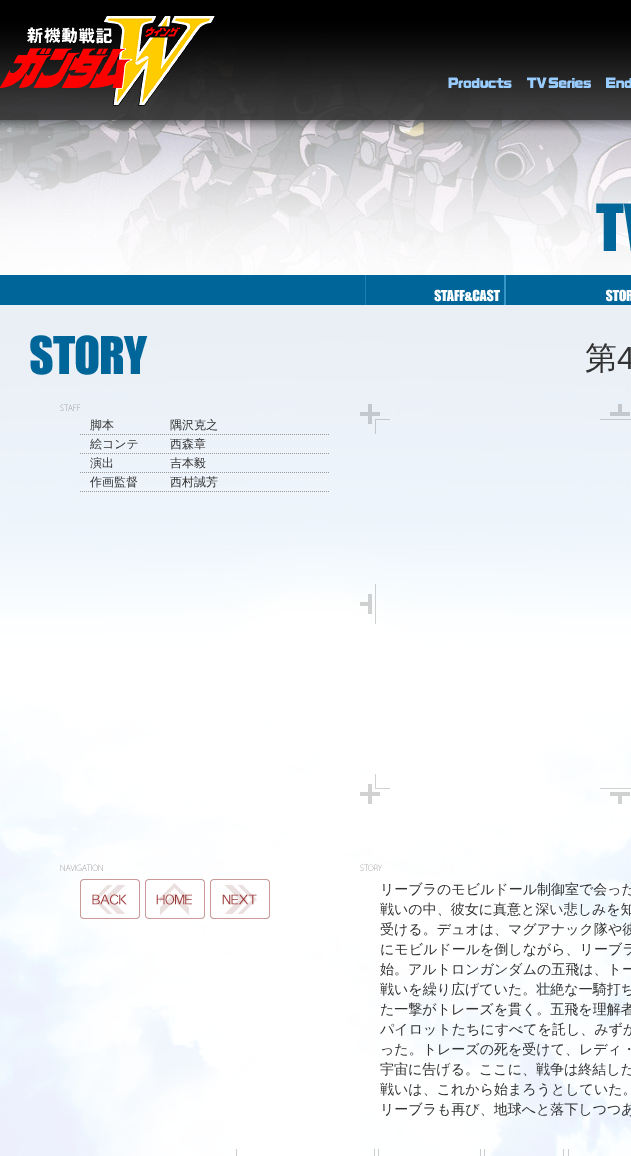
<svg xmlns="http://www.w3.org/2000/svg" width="631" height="1156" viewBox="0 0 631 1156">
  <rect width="100%" height="100%" fill="#fff"/>
  <image x="0" y="30" width="631" height="245" href="img/7.png"/>
  <image x="0" y="0" width="631" height="131" href="img/1.png"/>
  <image x="0" y="15" width="215" height="91" href="img/2.png"/>
  <image x="448" y="77" width="64" height="11" href="img/3.png"/>
  <image x="527" y="77" width="64" height="11" href="img/4.png"/>
  <image x="606" y="77" width="25" height="11" href="img/5.png"/>
  <image x="0" y="305" width="631" height="851" href="img/6.png"/>
  <path d="M0 275h631v30H0z" fill="#069"/>
  <image x="365" y="275" width="140" height="30" href="img/8.png"/>
  <path d="M505 275h1v30H505z" fill="#408cb3"/>
  <image x="505" y="275" width="126" height="30" href="img/9.png"/>
  <image x="30" y="335" width="118" height="40" href="img/10.png"/>
  <image x="60" y="404" width="21" height="7" href="img/11.png"/>
  <path d="M80 434.5H330" fill="none" stroke="#999" stroke-dasharray="1 1"/>
  <path d="M80 453.5H330" fill="none" stroke="#999" stroke-dasharray="1 1"/>
  <path d="M80 472.5H330" fill="none" stroke="#999" stroke-dasharray="1 1"/>
  <path d="M80 491.5H330" fill="none" stroke="#999" stroke-dasharray="1 1"/>
  <image x="360" y="404" width="271" height="400" href="img/12.png"/>
  <image x="60" y="864" width="43" height="7" href="img/13.png"/>
  <image x="80" y="879" width="60" height="40" href="img/14.png"/>
  <image x="80" y="879" width="60" height="40" href="img/15.png"/>
  <image x="145" y="879" width="60" height="40" href="img/16.png"/>
  <image x="145" y="879" width="60" height="40" href="img/17.png"/>
  <image x="210" y="879" width="60" height="40" href="img/18.png"/>
  <image x="210" y="879" width="60" height="40" href="img/19.png"/>
  <image x="360" y="864" width="22" height="7" href="img/20.png"/>
  <path d="M236 1149h1v7H236z" fill="#ccc"/>
  <path d="M374 1149h1v7H374z" fill="#ccc"/>
  <path d="M378 1149h1v7H378z" fill="#ccc"/>
  <path d="M480 1149h1v7H480z" fill="#ccc"/>
  <path d="M484 1149h1v7H484z" fill="#ccc"/>
  <path d="M563 1149h1v7H563z" fill="#ccc"/>
  <path d="M568 1149h1v7H568z" fill="#ccc"/>
  <text x="585" y="369" font-family="WenQuanYi Zen Hei" font-size="32" font-weight="500" fill="#333">第</text>
  <text x="617" y="369" font-family="Liberation Sans" font-size="32" fill="#333">4</text>
  <g font-family="WenQuanYi Zen Hei" font-size="12" font-weight="500" fill="#333">
    <text x="90" y="429">脚本</text>
    <text x="170" y="429">隅沢克之</text>
    <text x="90" y="448">絵コンテ</text>
    <text x="170" y="448">西森章</text>
    <text x="90" y="467">演出</text>
    <text x="170" y="467">吉本毅</text>
    <text x="90" y="486">作画監督</text>
    <text x="170" y="486">西村誠芳</text>
  </g>
  <g font-family="WenQuanYi Zen Hei" font-size="14" font-weight="500" fill="#333">
    <text x="380" y="894">リーブラのモビルドール制御室で会った</text>
    <text x="380" y="914">戦いの中、彼女に真意と深い悲しみを知</text>
    <text x="380" y="934">受ける。デュオは、マグアナック隊や彼</text>
    <text x="380" y="954">にモビルドールを倒しながら、リーブラ</text>
    <text x="380" y="974">始。アルトロンガンダムの五飛は、トー</text>
    <text x="380" y="994">戦いを繰り広げていた。壮絶な一騎打ち</text>
    <text x="380" y="1014">た一撃がトレーズを貫く。五飛を理解者</text>
    <text x="380" y="1034">パイロットたちにすべてを託し、みずか</text>
    <text x="380" y="1054">った。トレーズの死を受けて、レディ・</text>
    <text x="380" y="1074">宇宙に告げる。ここに、戦争は終結した</text>
    <text x="380" y="1094">戦いは、これから始まろうとしていた。</text>
    <text x="380" y="1114">リーブラも再び、地球へと落下しつつあ</text>
  </g>
</svg>
